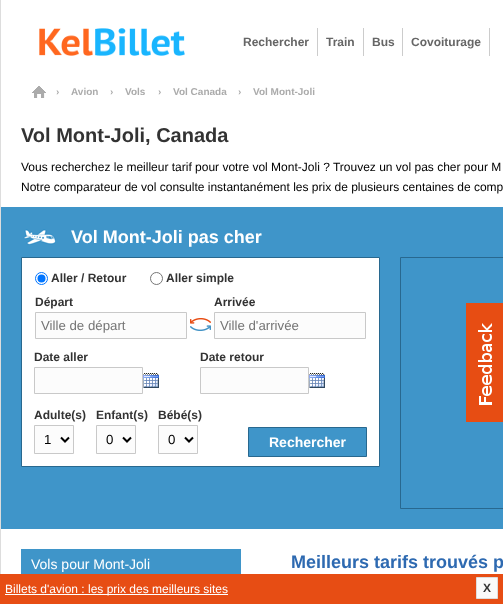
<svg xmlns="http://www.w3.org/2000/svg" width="503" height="604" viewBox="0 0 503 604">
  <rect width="100%" height="100%" fill="#fff"/>
  <path d="M0 0h1v574H0z" fill="#ddd"/>
  <image x="39" y="28" width="146" height="28" href="img/1.png"/>
  <path d="M317 28h1v28H317z" fill="#ccc"/>
  <path d="M363 28h1v28H363z" fill="#ccc"/>
  <path d="M402 28h1v28H402z" fill="#ccc"/>
  <path d="M489 28h1v28H489z" fill="#ccc"/>
  <image x="32" y="86" width="14" height="12" href="img/2.png"/>
  <path d="M1 207h502v322H1z" fill="#3f95c9"/>
  <image x="23" y="229" width="33" height="16" href="img/3.png"/>
  <path d="M21.5 257.5h358v209H21.5z" fill="#fff" stroke="#28688f"/>
  <circle cx="41.5" cy="278.5" r="6" fill="none" stroke="#0075ff"/>
  <circle cx="41.5" cy="278.5" r="4" fill="#0075ff"/>
  <circle cx="156.5" cy="278.5" r="6" fill="none" stroke="#767676"/>
  <path d="M35.5 312.5h151v26H35.5z" fill="#fcfcfc" stroke="#c9c9c9"/>
  <image x="190" y="318" width="21" height="13" href="img/4.png"/>
  <path d="M214.5 312.5h151v26H214.5z" fill="#fcfcfc" stroke="#c9c9c9"/>
  <path d="M34.5 367.5h108v26H34.5z" fill="#fcfcfc" stroke="#c9c9c9"/>
  <image x="143" y="373" width="16" height="15" href="img/5.png"/>
  <path d="M200.5 367.5h108v26H200.5z" fill="#fcfcfc" stroke="#c9c9c9"/>
  <image x="309" y="373" width="16" height="15" href="img/5.png"/>
  <path d="M34.5 425.5h39v28H34.5z" fill="#fcfcfc" stroke="#c9c9c9"/>
  <path d="M61 437.5L65 441.5L69 437.5" fill="none" stroke="#000" stroke-width="2"/>
  <path d="M96.5 425.5h39v28H96.5z" fill="#fcfcfc" stroke="#c9c9c9"/>
  <path d="M123 437.5L127 441.5L131 437.5" fill="none" stroke="#000" stroke-width="2"/>
  <path d="M158.5 425.5h39v28H158.5z" fill="#fcfcfc" stroke="#c9c9c9"/>
  <path d="M185 437.5L189 441.5L193 437.5" fill="none" stroke="#000" stroke-width="2"/>
  <path d="M248.5 427.5h118v29H248.5z" fill="#3f95c9" stroke="#28688f"/>
  <path d="M400.5 257.5h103v251H400.5z" fill="none" stroke="#28688f"/>
  <path d="M21 549h220v25H21z" fill="#3f95c9"/>
  <image x="466" y="303" width="37" height="119" href="img/6.png"/>
  <path d="M0 574h503v30H0z" fill="#e74d14"/>
  <path d="M5 594h223v1H5z" fill="#fff"/>
  <path d="M476.5 577.5h21v21H476.5z" fill="#fafafa" stroke="#ddd"/>
  <g font-family="Liberation Sans" font-size="12" font-weight="bold" fill="#666">
    <text x="243" y="46">Rechercher</text>
    <text x="326" y="46">Train</text>
    <text x="372" y="46">Bus</text>
    <text x="411" y="46">Covoiturage</text>
  </g>
  <g font-family="Liberation Sans" font-size="10" font-weight="bold" fill="#ababab">
    <text x="56" y="95">›</text>
    <text x="71" y="95">Avion</text>
    <text x="110" y="95">›</text>
    <text x="125" y="95">Vols</text>
    <text x="158" y="95">›</text>
    <text x="173" y="95">Vol Canada</text>
    <text x="238" y="95">›</text>
    <text x="253" y="95">Vol Mont-Joli</text>
  </g>
  <text x="21" y="142" font-family="Liberation Sans" font-size="20" font-weight="bold" fill="#333">Vol Mont-Joli, Canada</text>
  <g font-family="Liberation Sans" font-size="12" fill="#000">
    <text x="21" y="171">Vous recherchez le meilleur tarif pour votre vol Mont-Joli ? Trouvez un vol pas cher pour M</text>
    <text x="21" y="191">Notre comparateur de vol consulte instantanément les prix de plusieurs centaines de comp</text>
  </g>
  <text x="71" y="243" font-family="Liberation Sans" font-size="18" font-weight="bold" fill="#fff">Vol Mont-Joli pas cher</text>
  <g font-family="Liberation Sans" font-size="12" font-weight="bold" fill="#333">
    <text x="51" y="282">Aller / Retour</text>
    <text x="166" y="282">Aller simple</text>
    <text x="35" y="306">Départ</text>
  </g>
  <text x="41" y="330" font-family="Liberation Sans" font-size="13.25" fill="#757575">Ville de départ</text>
  <text x="214" y="306" font-family="Liberation Sans" font-size="12" font-weight="bold" fill="#333">Arrivée</text>
  <text x="220" y="330" font-family="Liberation Sans" font-size="13.25" fill="#757575">Ville d'arrivée</text>
  <g font-family="Liberation Sans" font-size="12" font-weight="bold" fill="#333">
    <text x="34" y="361">Date aller</text>
    <text x="200" y="361">Date retour</text>
    <text x="34" y="419">Adulte(s)</text>
  </g>
  <text x="44" y="444" font-family="Liberation Sans" font-size="13.25" fill="#000">1</text>
  <text x="96" y="419" font-family="Liberation Sans" font-size="12" font-weight="bold" fill="#333">Enfant(s)</text>
  <text x="106" y="444" font-family="Liberation Sans" font-size="13.25" fill="#000">0</text>
  <text x="158" y="419" font-family="Liberation Sans" font-size="12" font-weight="bold" fill="#333">Bébé(s)</text>
  <text x="168" y="444" font-family="Liberation Sans" font-size="13.25" fill="#000">0</text>
  <text x="269" y="447" font-family="Liberation Sans" font-size="14" font-weight="bold" fill="#fff">Rechercher</text>
  <text x="31" y="569" font-family="Liberation Sans" font-size="14" fill="#fff">Vols pour Mont-Joli</text>
  <text x="291" y="568" font-family="Liberation Sans" font-size="18" font-weight="bold" fill="#2e6ab1">Meilleurs tarifs trouvés p</text>
  <text x="5" y="593" font-family="Liberation Sans" font-size="12" fill="#fff">Billets d'avion : les prix des meilleurs sites</text>
  <text x="483" y="592" font-family="Liberation Sans" font-size="12" font-weight="bold" fill="#333">X</text>
</svg>
